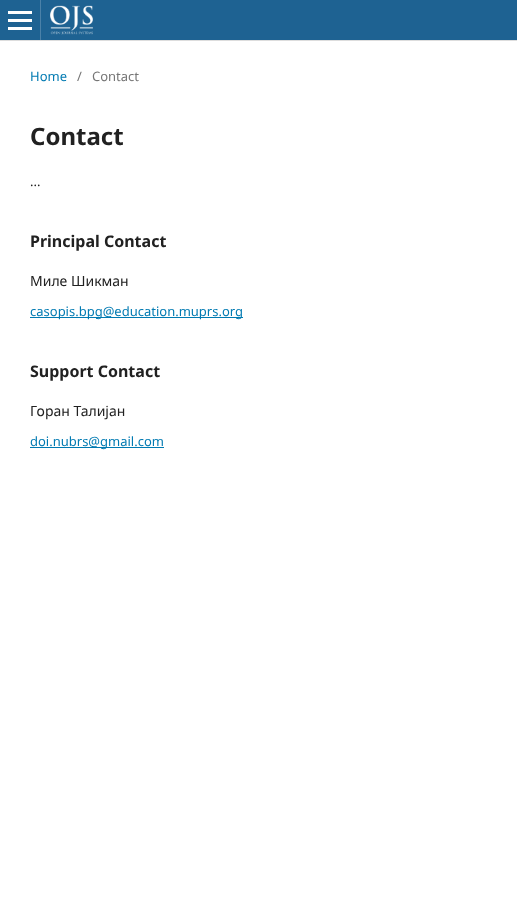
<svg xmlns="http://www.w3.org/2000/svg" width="517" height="902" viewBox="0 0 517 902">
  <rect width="100%" height="100%" fill="#fff"/>
  <path d="M0 0h517v40H0z" fill="#1e6292"/>
  <path d="M0 40h517v1H0z" fill="#ddd"/>
  <path d="M40 0h1v40H40z" fill="#4b81a8"/>
  <path d="M8 27h24v3H8z" fill="#fff"/>
  <path d="M8 11h24v3H8z" fill="#fff"/>
  <path d="M8 19h24v3H8z" fill="#fff"/>
  <image x="50" y="5" width="43" height="30" href="img/1.png"/>
  <path d="M30 317h213v1H30z" fill="#007ab2"/>
  <path d="M30 447h134v1H30z" fill="#007ab2"/>
  <text x="30" y="81" font-family="Noto Sans" font-size="13" fill="#007ab2">Home</text>
  <g font-family="Noto Sans" font-size="13" fill="#757575">
    <text x="77" y="81">/</text>
    <text x="92" y="81">Contact</text>
  </g>
  <text x="30" y="145" font-family="Noto Sans" font-size="24" font-weight="bold" fill="#212121">Contact</text>
  <text x="30" y="186" font-family="Noto Sans" font-size="13" fill="#212121">...</text>
  <text x="30" y="247" font-family="Noto Sans" font-size="16" font-weight="bold" fill="#212121">Principal Contact</text>
  <text x="30" y="286" font-family="Noto Sans" font-size="14" fill="#212121">Миле Шикман</text>
  <text x="30" y="316" font-family="Noto Sans" font-size="13" fill="#007ab2">casopis.bpg@education.muprs.org</text>
  <text x="30" y="377" font-family="Noto Sans" font-size="16" font-weight="bold" fill="#212121">Support Contact</text>
  <text x="30" y="416" font-family="Noto Sans" font-size="14" fill="#212121">Горан Талијан</text>
  <text x="30" y="446" font-family="Noto Sans" font-size="13" fill="#007ab2">doi.nubrs@gmail.com</text>
</svg>
